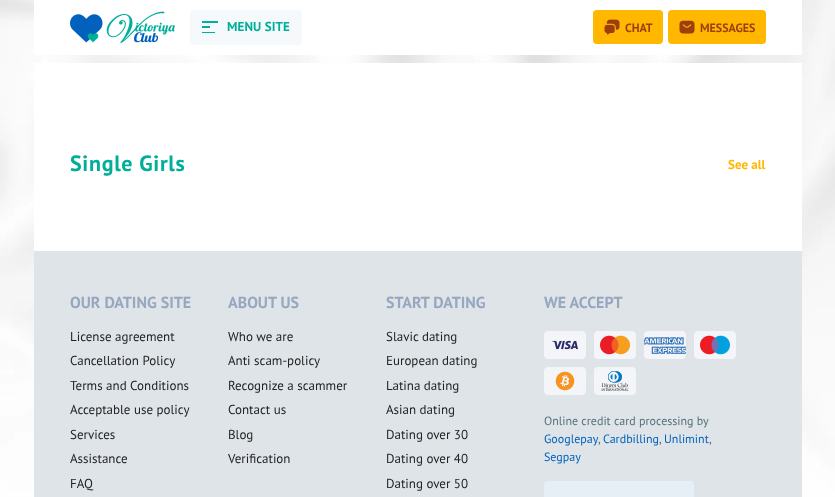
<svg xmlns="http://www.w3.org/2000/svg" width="835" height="497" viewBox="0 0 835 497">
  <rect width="100%" height="100%" fill="#fff"/>
  <image x="0" y="0" width="835" height="497" href="img/1.png"/>
  <path d="M34 0h768v55H34z" fill="#fff"/>
  <image x="70" y="11" width="105" height="32" href="img/2.png"/>
  <rect x="190" y="10" width="112" height="35" rx="4" fill="#f5f9fc"/>
  <path d="M202 21h16v2H202z" fill="#00ae99"/>
  <path d="M202 26h8v2H202z" fill="#00ae99"/>
  <path d="M202 32h13v1H202z" fill="#00ae99"/>
  <rect x="593" y="10" width="70" height="34" rx="4" fill="#ffb700"/>
  <image x="604" y="19" width="16" height="16" href="img/3.png"/>
  <rect x="668" y="10" width="98" height="34" rx="4" fill="#ffb700"/>
  <image x="679" y="20" width="16" height="14" href="img/4.png"/>
  <path d="M34 63h768v188H34z" fill="#fff"/>
  <path d="M34 251h768v246H34z" fill="#dfe4e8"/>
  <image x="544" y="331" width="42" height="28" href="img/5.png"/>
  <image x="594" y="331" width="42" height="28" href="img/6.png"/>
  <image x="644" y="331" width="42" height="28" href="img/7.png"/>
  <image x="694" y="331" width="42" height="28" href="img/8.png"/>
  <image x="544" y="367" width="42" height="28" href="img/9.png"/>
  <image x="594" y="367" width="42" height="28" href="img/10.png"/>
  <rect x="545" y="482" width="148" height="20" rx="3" fill="#e6eff5" stroke="#e6eff5" stroke-width="2"/>
  <text x="227" y="31" font-family="PT Sans" font-size="13" font-weight="bold" letter-spacing="0.1" fill="#00ae99">MENU SITE</text>
  <g font-family="PT Sans" font-size="12" font-weight="bold" fill="#9d3e0e">
    <text x="625" y="32">CHAT</text>
    <text x="700" y="32">MESSAGES</text>
  </g>
  <text x="70" y="171" font-family="PT Sans" font-size="22" font-weight="bold" letter-spacing="0.7" fill="#00ae99">Single Girls</text>
  <text x="728" y="169" font-family="PT Sans" font-size="13" font-weight="bold" fill="#ffb700">See all</text>
  <text x="70" y="308" font-family="PT Sans" font-size="16" font-weight="bold" fill="#97a7bf">OUR DATING SITE</text>
  <g font-family="PT Sans" font-size="13" fill="#232323">
    <text x="70" y="341">License agreement</text>
    <text x="70" y="365">Cancellation Policy</text>
    <text x="70" y="390">Terms and Conditions</text>
    <text x="70" y="414">Acceptable use policy</text>
    <text x="70" y="439">Services</text>
    <text x="70" y="463">Assistance</text>
    <text x="70" y="488">FAQ</text>
  </g>
  <text x="228" y="308" font-family="PT Sans" font-size="16" font-weight="bold" fill="#97a7bf">ABOUT US</text>
  <g font-family="PT Sans" font-size="13" fill="#232323">
    <text x="228" y="341">Who we are</text>
    <text x="228" y="365">Anti scam-policy</text>
    <text x="228" y="390">Recognize a scammer</text>
    <text x="228" y="414">Contact us</text>
    <text x="228" y="439">Blog</text>
    <text x="228" y="463">Verification</text>
  </g>
  <text x="386" y="308" font-family="PT Sans" font-size="16" font-weight="bold" fill="#97a7bf">START DATING</text>
  <g font-family="PT Sans" font-size="13" fill="#232323">
    <text x="386" y="341">Slavic dating</text>
    <text x="386" y="365">European dating</text>
    <text x="386" y="390">Latina dating</text>
    <text x="386" y="414">Asian dating</text>
    <text x="386" y="439">Dating over 30</text>
    <text x="386" y="463">Dating over 40</text>
    <text x="386" y="488">Dating over 50</text>
  </g>
  <text x="544" y="308" font-family="PT Sans" font-size="16" font-weight="bold" fill="#97a7bf">WE ACCEPT</text>
  <text x="544" y="425" font-family="PT Sans" font-size="12" fill="#57707c">Online credit card processing by</text>
  <text x="544" y="443" font-family="PT Sans" font-size="12" fill="#0161bd">Googlepay</text>
  <text x="598" y="443" font-family="PT Sans" font-size="12" fill="#57707c">,</text>
  <text x="603" y="443" font-family="PT Sans" font-size="12" fill="#0161bd">Cardbilling</text>
  <text x="659" y="443" font-family="PT Sans" font-size="12" fill="#57707c">,</text>
  <text x="664" y="443" font-family="PT Sans" font-size="12" fill="#0161bd">Unlimint</text>
  <text x="709" y="443" font-family="PT Sans" font-size="12" fill="#57707c">,</text>
  <text x="544" y="461" font-family="PT Sans" font-size="12" fill="#0161bd">Segpay</text>
</svg>
